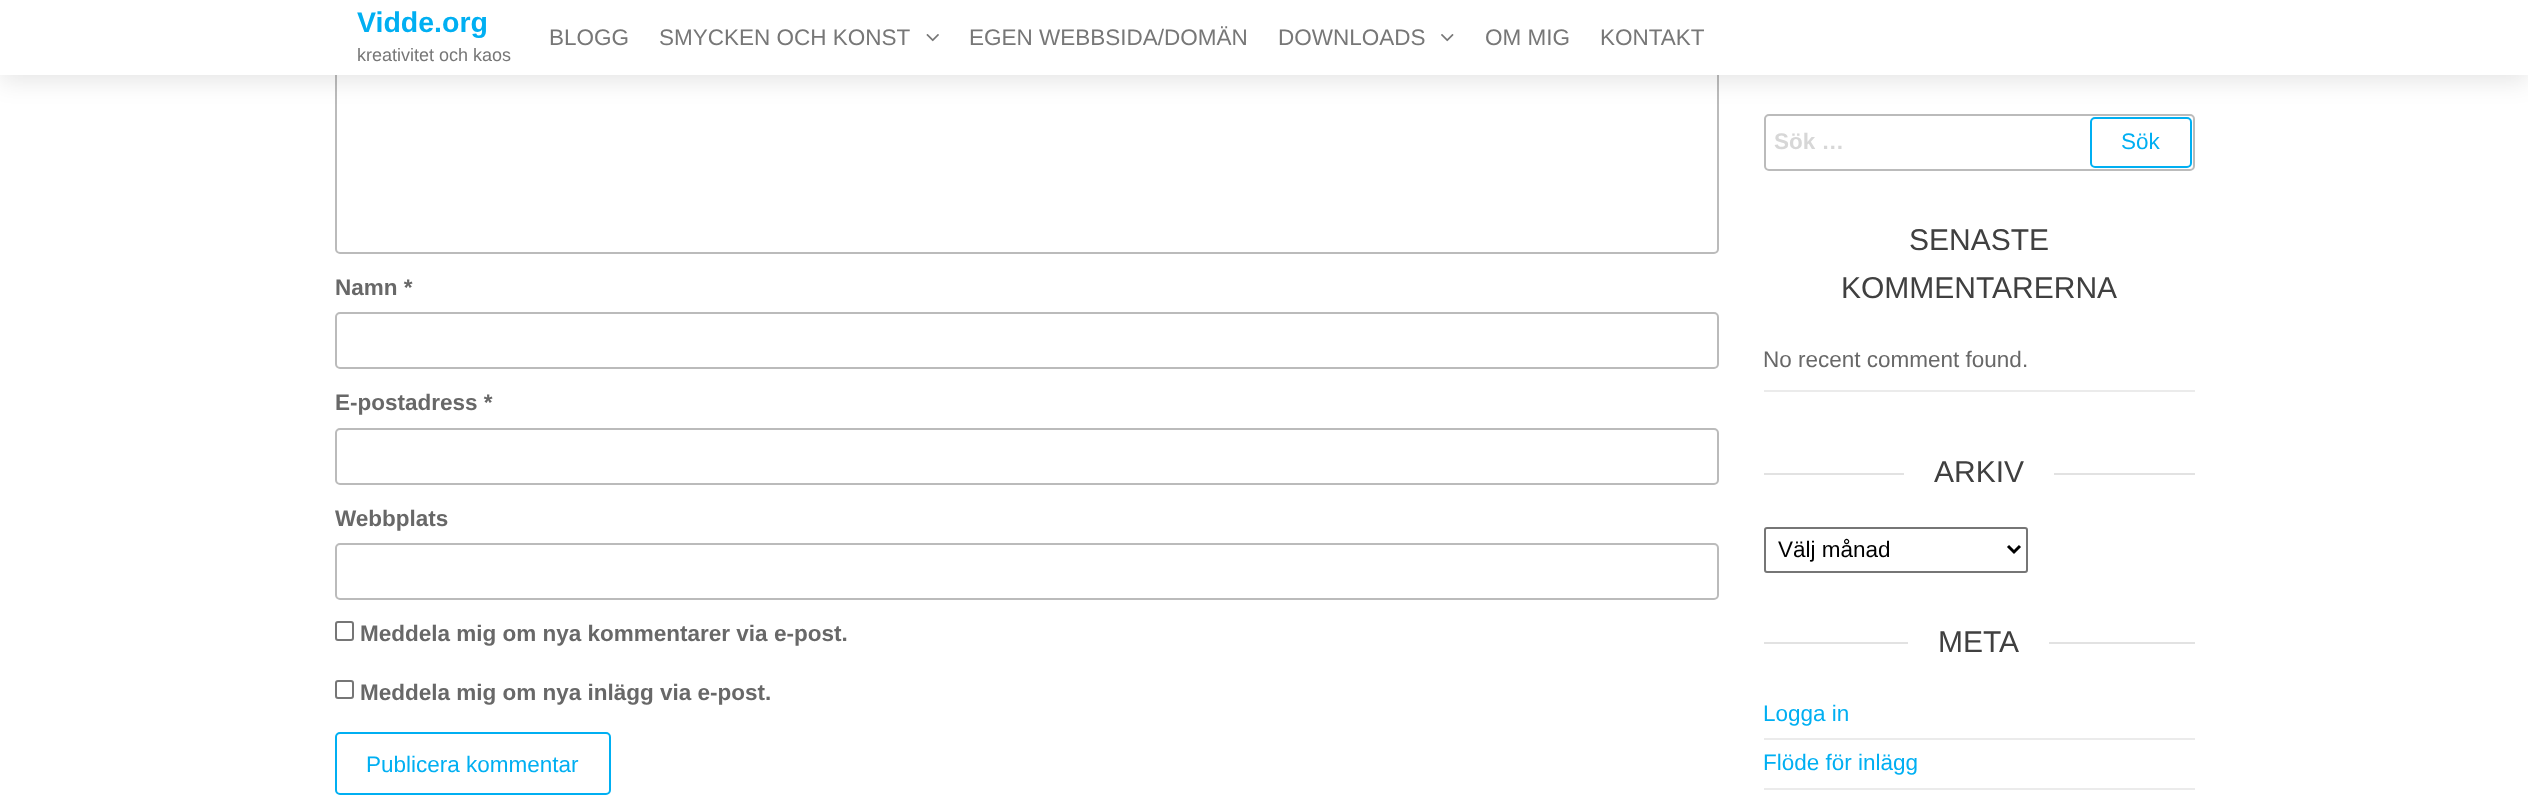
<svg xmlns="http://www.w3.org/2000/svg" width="2528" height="801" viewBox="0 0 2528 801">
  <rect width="100%" height="100%" fill="#fff"/>
  <rect x="336" y="-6" width="1382" height="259" rx="4" fill="none" stroke="#bbb" stroke-width="2"/>
  <rect x="1765" y="115" width="429" height="55" rx="4" fill="none" stroke="#bbb" stroke-width="2"/>
  <rect x="2091" y="118" width="100" height="49" rx="4" fill="none" stroke="#00aff2" stroke-width="2"/>
  <path d="M0 6h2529v75H0z" fill="#0000001a" filter="blur(12px)"/>
  <path d="M0 0h2528v75H0z" fill="#fff"/>
  <image x="926" y="34" width="13" height="8" href="img/1.png"/>
  <image x="1441" y="34" width="13" height="8" href="img/2.png"/>
  <rect x="336" y="313" width="1382" height="55" rx="4" fill="none" stroke="#bbb" stroke-width="2"/>
  <rect x="336" y="429" width="1382" height="55" rx="4" fill="none" stroke="#bbb" stroke-width="2"/>
  <rect x="336" y="544" width="1382" height="55" rx="4" fill="none" stroke="#bbb" stroke-width="2"/>
  <rect x="336" y="622" width="17" height="18" rx="2" fill="none" stroke="#767676" stroke-width="2"/>
  <rect x="336" y="681" width="17" height="17" rx="2" fill="none" stroke="#767676" stroke-width="2"/>
  <rect x="336" y="733" width="274" height="61" rx="4" fill="none" stroke="#00aff2" stroke-width="2"/>
  <path d="M1764 390h431v2H1764z" fill="#ebebeb"/>
  <path d="M1764 473h431v2H1764z" fill="#e2e2e2"/>
  <path d="M1904 473h150v2H1904z" fill="#fff"/>
  <rect x="1765" y="528" width="262" height="44" rx="2" fill="none" stroke="#767676" stroke-width="2"/>
  <path d="M2008 546L2014 552L2020 546" fill="none" stroke="#000" stroke-width="3"/>
  <path d="M1764 642h431v2H1764z" fill="#e2e2e2"/>
  <path d="M1908 642h141v2H1908z" fill="#fff"/>
  <path d="M1764 738h431v2H1764z" fill="#ebebeb"/>
  <path d="M1764 788h431v2H1764z" fill="#ebebeb"/>
  <text x="357" y="32" font-family="Liberation Sans" font-size="28.5" font-weight="bold" fill="#00aff2">Vidde.org</text>
  <text x="357" y="61" font-family="Liberation Sans" font-size="18" fill="#777">kreativitet och kaos</text>
  <g font-family="Liberation Sans" font-size="22.5" fill="#777">
    <text x="549" y="45">BLOGG</text>
    <text x="659" y="45">SMYCKEN OCH KONST</text>
    <text x="969" y="45">EGEN WEBBSIDA/DOMÄN</text>
    <text x="1278" y="45">DOWNLOADS</text>
    <text x="1485" y="45">OM MIG</text>
    <text x="1600" y="45">KONTAKT</text>
  </g>
  <g font-family="Liberation Sans" font-size="22.5" font-weight="bold" fill="#686868">
    <text x="335" y="295">Namn *</text>
    <text x="335" y="410">E-postadress *</text>
    <text x="335" y="526">Webbplats</text>
    <text x="360" y="641">Meddela mig om nya kommentarer via e-post.</text>
    <text x="360" y="700">Meddela mig om nya inlägg via e-post.</text>
  </g>
  <text x="366" y="772" font-family="Liberation Sans" font-size="22.5" fill="#00aff2">Publicera kommentar</text>
  <text x="1774" y="149" font-family="Liberation Sans" font-size="22.5" font-weight="bold" fill="#d7d7d7">Sök …</text>
  <text x="2121" y="149" font-family="Liberation Sans" font-size="22.5" fill="#00aff2">Sök</text>
  <g font-family="Liberation Sans" font-size="30" fill="#404040">
    <text x="1909" y="250">SENASTE</text>
    <text x="1841" y="298">KOMMENTARERNA</text>
  </g>
  <text x="1763" y="367" font-family="Liberation Sans" font-size="22.5" fill="#686868">No recent comment found.</text>
  <text x="1934" y="482" font-family="Liberation Sans" font-size="30" fill="#404040">ARKIV</text>
  <text x="1778" y="557" font-family="Liberation Sans" font-size="22.5" fill="#000">Välj månad</text>
  <text x="1938" y="652" font-family="Liberation Sans" font-size="30" fill="#404040">META</text>
  <g font-family="Liberation Sans" font-size="22.5" fill="#00aff2">
    <text x="1763" y="721">Logga in</text>
    <text x="1763" y="770">Flöde för inlägg</text>
  </g>
</svg>
